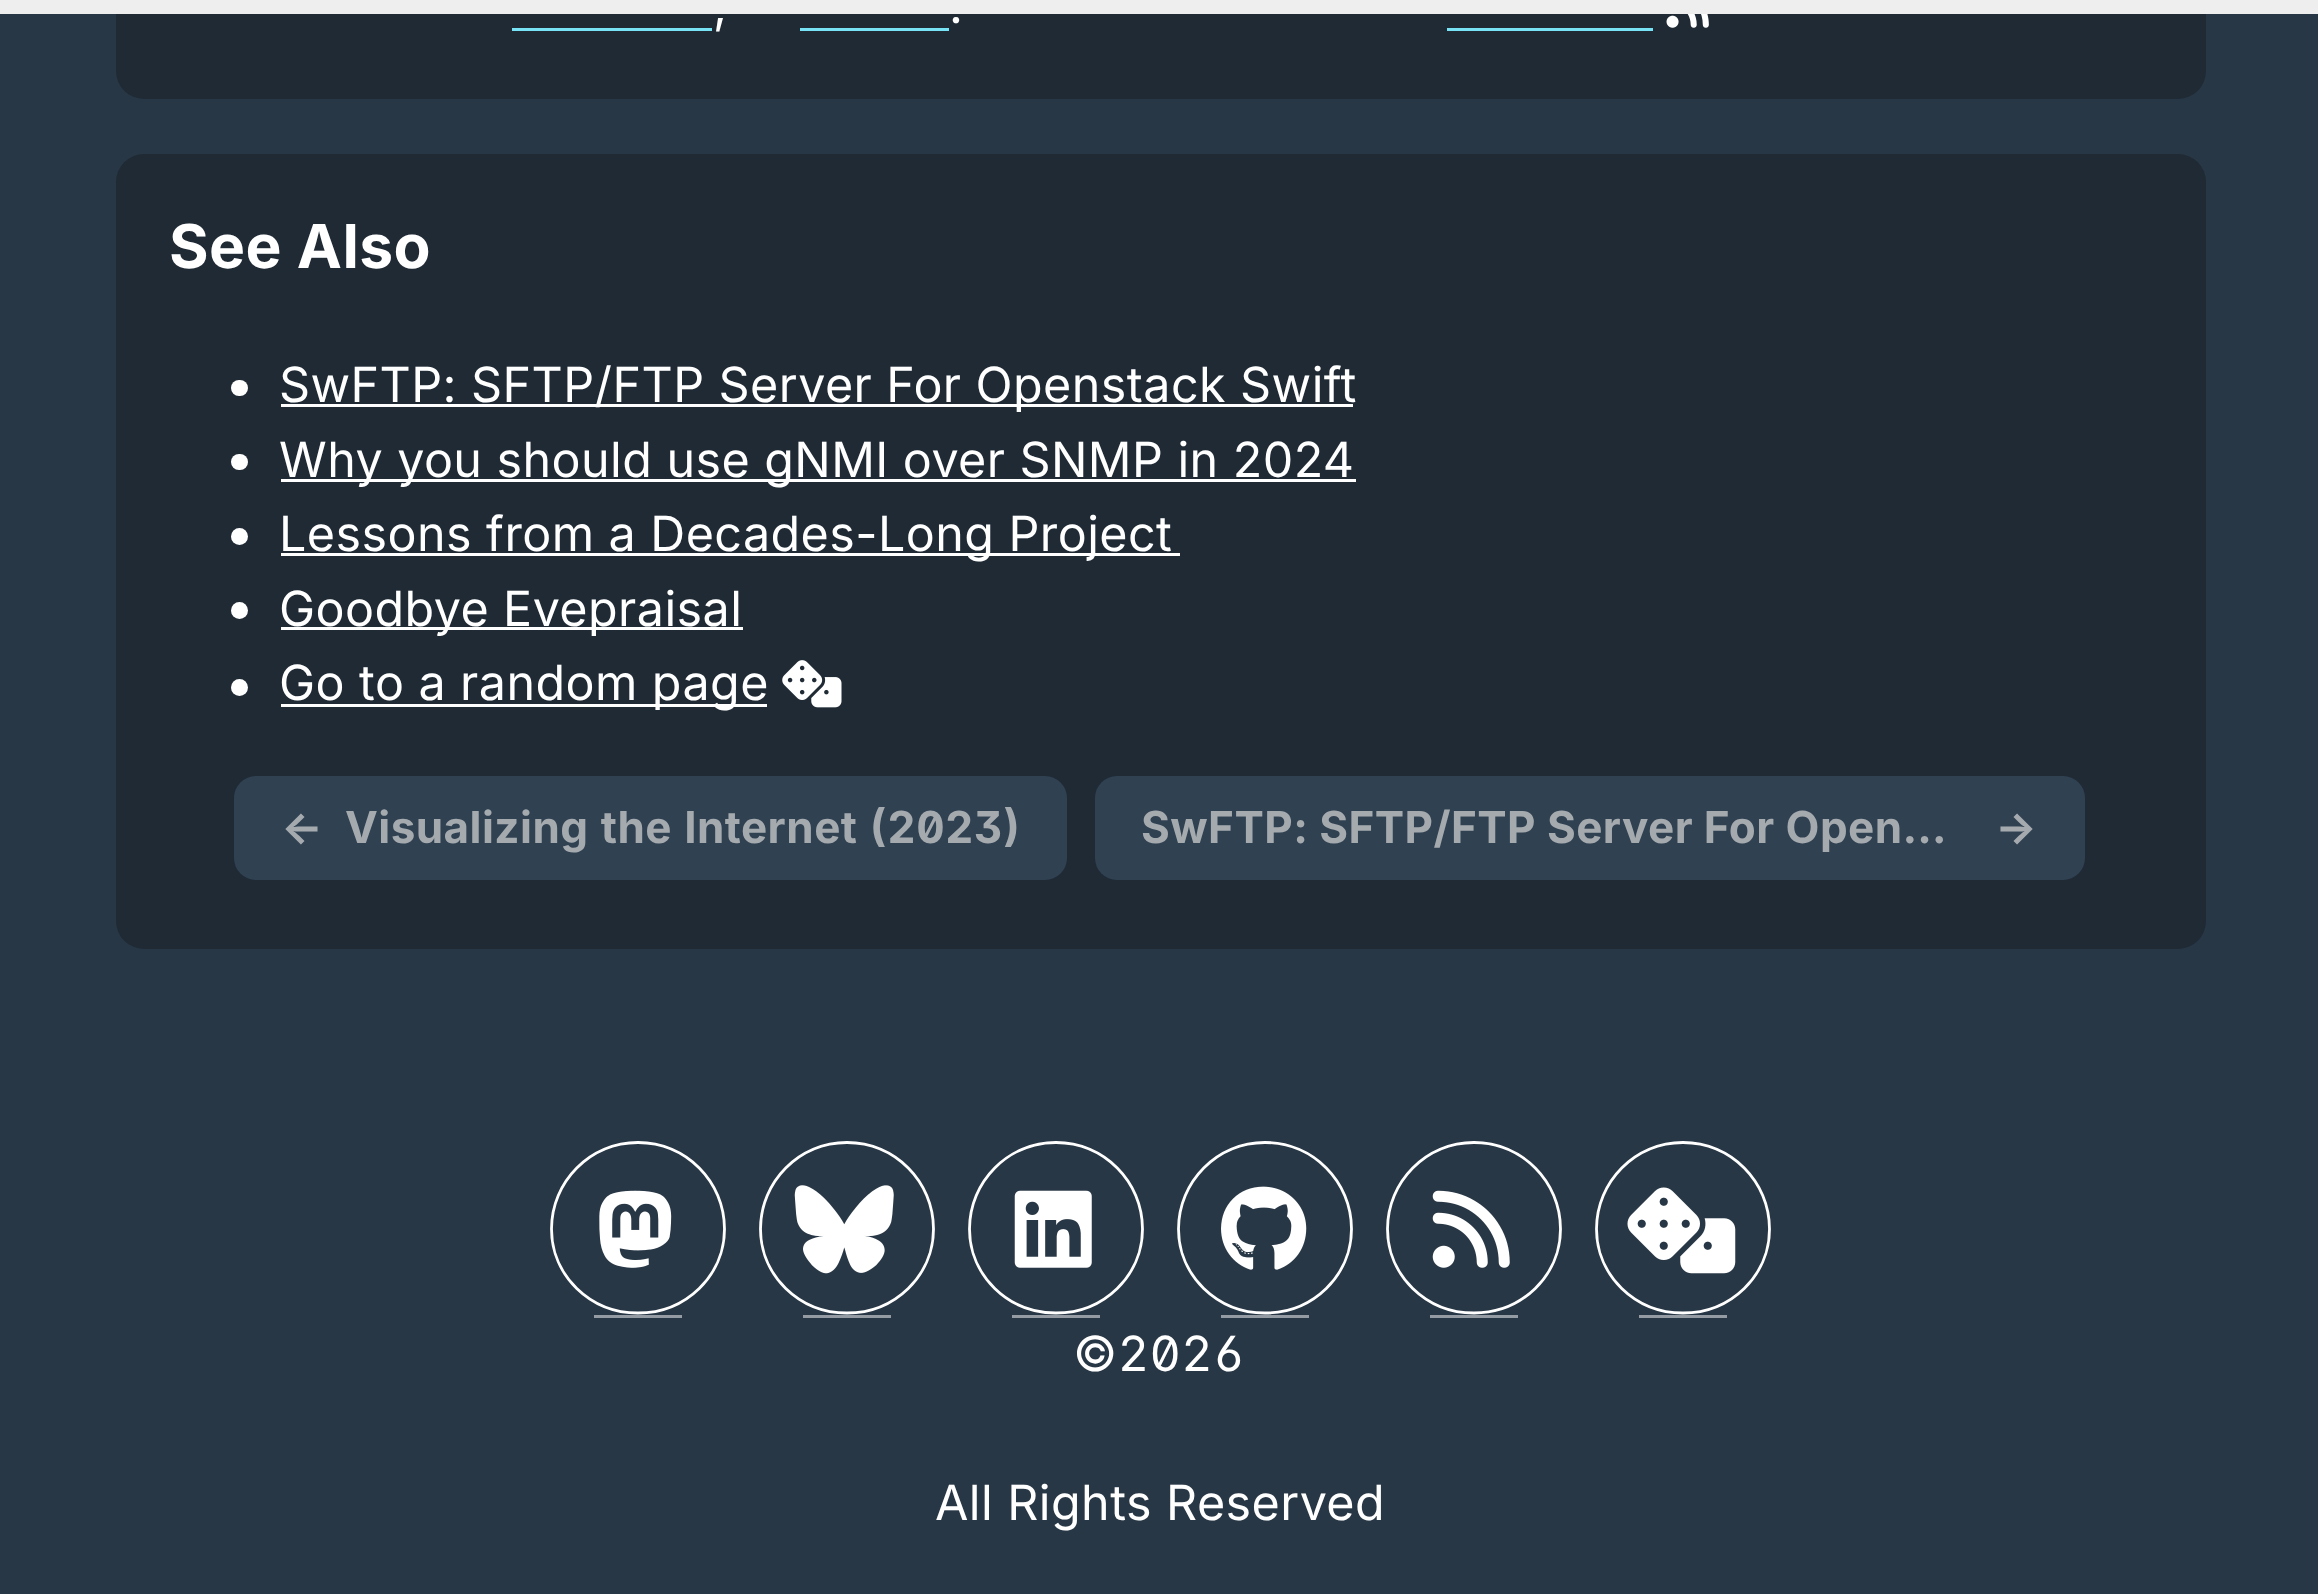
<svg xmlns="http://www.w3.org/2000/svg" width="2318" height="1594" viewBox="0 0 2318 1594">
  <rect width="100%" height="100%" fill="#283745"/>
  <rect x="116" y="-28" width="2090" height="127" rx="28" fill="#1f2a35"/>
  <path d="M0 0h2318v14H0z" fill="#eee"/>
  <path d="M512 28h200v3H512z" fill="#77e3f4"/>
  <path d="M800 28h149v3H800z" fill="#77e3f4"/>
  <path d="M1447 28h206v3H1447z" fill="#77e3f4"/>
  <image x="1666" y="14" width="43" height="14" href="img/1.png"/>
  <rect x="116" y="154" width="2090" height="795" rx="28" fill="#1f2a35"/>
  <rect x="231" y="380" width="17" height="16" rx="8" fill="#fff"/>
  <path d="M281 404h1072v3H281z" fill="#fff"/>
  <rect x="231" y="454" width="17" height="16" rx="8" fill="#fff"/>
  <path d="M281 479h1075v3H281z" fill="#fff"/>
  <circle cx="239.5" cy="536.5" r="8.5" fill="#fff"/>
  <path d="M281 553h899v3H281z" fill="#fff"/>
  <circle cx="239.5" cy="610.5" r="8.5" fill="#fff"/>
  <path d="M281 627h462v3H281z" fill="#fff"/>
  <circle cx="239.5" cy="687.5" r="8.5" fill="#fff"/>
  <path d="M281 704h486v3H281z" fill="#fff"/>
  <image x="782" y="660" width="60" height="48" href="img/2.png"/>
  <rect x="234" y="776" width="833" height="104" rx="22" fill="#304152"/>
  <rect x="1095" y="776" width="990" height="104" rx="22" fill="#304152"/>
  <path d="M638 1142.5C686 1142.5 724.5 1181.5 724.5 1229C724.5 1275.5 686 1313 638 1313C590 1313 551.5 1275.5 551.5 1229C551.5 1181.5 590 1142.5 638 1142.5Z" fill="none" stroke="#fff" stroke-width="2.8"/>
  <path d="M594 1315h88v3H594z" fill="#949ba2"/>
  <image x="599" y="1190" width="73" height="78" href="img/3.png"/>
  <path d="M847 1142.5C895 1142.5 933.5 1181.5 933.5 1229C933.5 1275.5 895 1313 847 1313C799 1313 760.5 1275.5 760.5 1229C760.5 1181.5 799 1142.5 847 1142.5Z" fill="none" stroke="#fff" stroke-width="2.8"/>
  <path d="M803 1315h88v3H803z" fill="#949ba2"/>
  <image x="794" y="1185" width="100" height="89" href="img/4.png"/>
  <path d="M1056 1142.5C1104 1142.5 1142.5 1181.5 1142.5 1229C1142.5 1275.5 1104 1313 1056 1313C1008 1313 969.5 1275.5 969.5 1229C969.5 1181.5 1008 1142.5 1056 1142.5Z" fill="none" stroke="#fff" stroke-width="2.8"/>
  <path d="M1012 1315h88v3H1012z" fill="#949ba2"/>
  <image x="1014" y="1190" width="78" height="78" href="img/5.png"/>
  <path d="M1265 1142.5C1313 1142.5 1351.5 1181.5 1351.5 1229C1351.5 1275.5 1313 1313 1265 1313C1217 1313 1178.5 1275.5 1178.5 1229C1178.5 1181.5 1217 1142.5 1265 1142.5Z" fill="none" stroke="#fff" stroke-width="2.8"/>
  <path d="M1221 1315h88v3H1221z" fill="#949ba2"/>
  <image x="1221" y="1186" width="86" height="84" href="img/6.png"/>
  <path d="M1474 1142.5C1522 1142.5 1560.5 1181.5 1560.5 1229C1560.5 1275.5 1522 1313 1474 1313C1426 1313 1387.5 1275.5 1387.5 1229C1387.5 1181.5 1426 1142.5 1474 1142.5Z" fill="none" stroke="#fff" stroke-width="2.8"/>
  <path d="M1430 1315h88v3H1430z" fill="#949ba2"/>
  <image x="1432" y="1190" width="78" height="78" href="img/7.png"/>
  <path d="M1683 1142.5C1731 1142.5 1769.5 1181.5 1769.5 1229C1769.5 1275.5 1731 1313 1683 1313C1635 1313 1596.5 1275.5 1596.5 1229C1596.5 1181.5 1635 1142.5 1683 1142.5Z" fill="none" stroke="#fff" stroke-width="2.8"/>
  <path d="M1639 1315h88v3H1639z" fill="#949ba2"/>
  <image x="1627" y="1187" width="109" height="87" href="img/8.png"/>
  <g font-family="Inter" font-size="48.4" letter-spacing="0.45" fill="#fff">
    <text x="713" y="23">,</text>
    <text x="949" y="23">.</text>
  </g>
  <text x="169" y="268" font-family="Inter" font-size="60.5" font-weight="bold" letter-spacing="0.45" fill="#fff">See Also</text>
  <g font-family="Inter" font-size="48.4" letter-spacing="0.45" fill="#fff">
    <text x="279" y="402">SwFTP: SFTP/FTP Server For Openstack Swift</text>
    <text x="279" y="477">Why you should use gNMI over SNMP in 2024</text>
    <text x="279" y="551">Lessons from a Decades-Long Project</text>
    <text x="279" y="626">Goodbye Evepraisal</text>
    <text x="279" y="700">Go to a random page</text>
  </g>
  <text x="281" y="843" font-family="Inter" font-size="44" font-weight="bold" letter-spacing="0.45" fill="#a5aaae">←</text>
  <text x="345" y="843" font-family="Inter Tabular" font-size="44" font-weight="bold" letter-spacing="0.45" fill="#a5aaae">Visualizing the Internet (2023)</text>
  <g font-family="Inter" font-size="44" font-weight="bold" letter-spacing="0.45" fill="#a5aaae">
    <text x="1141" y="843">SwFTP: SFTP/FTP Server For Open…</text>
    <text x="1995" y="843">→</text>
  </g>
  <text x="1073" y="1371" font-family="Inter Tabular" font-size="48.4" letter-spacing="0.45" fill="#fff">©2026</text>
  <text x="935" y="1520" font-family="Inter" font-size="48.4" letter-spacing="0.45" fill="#fff">All Rights Reserved</text>
</svg>
